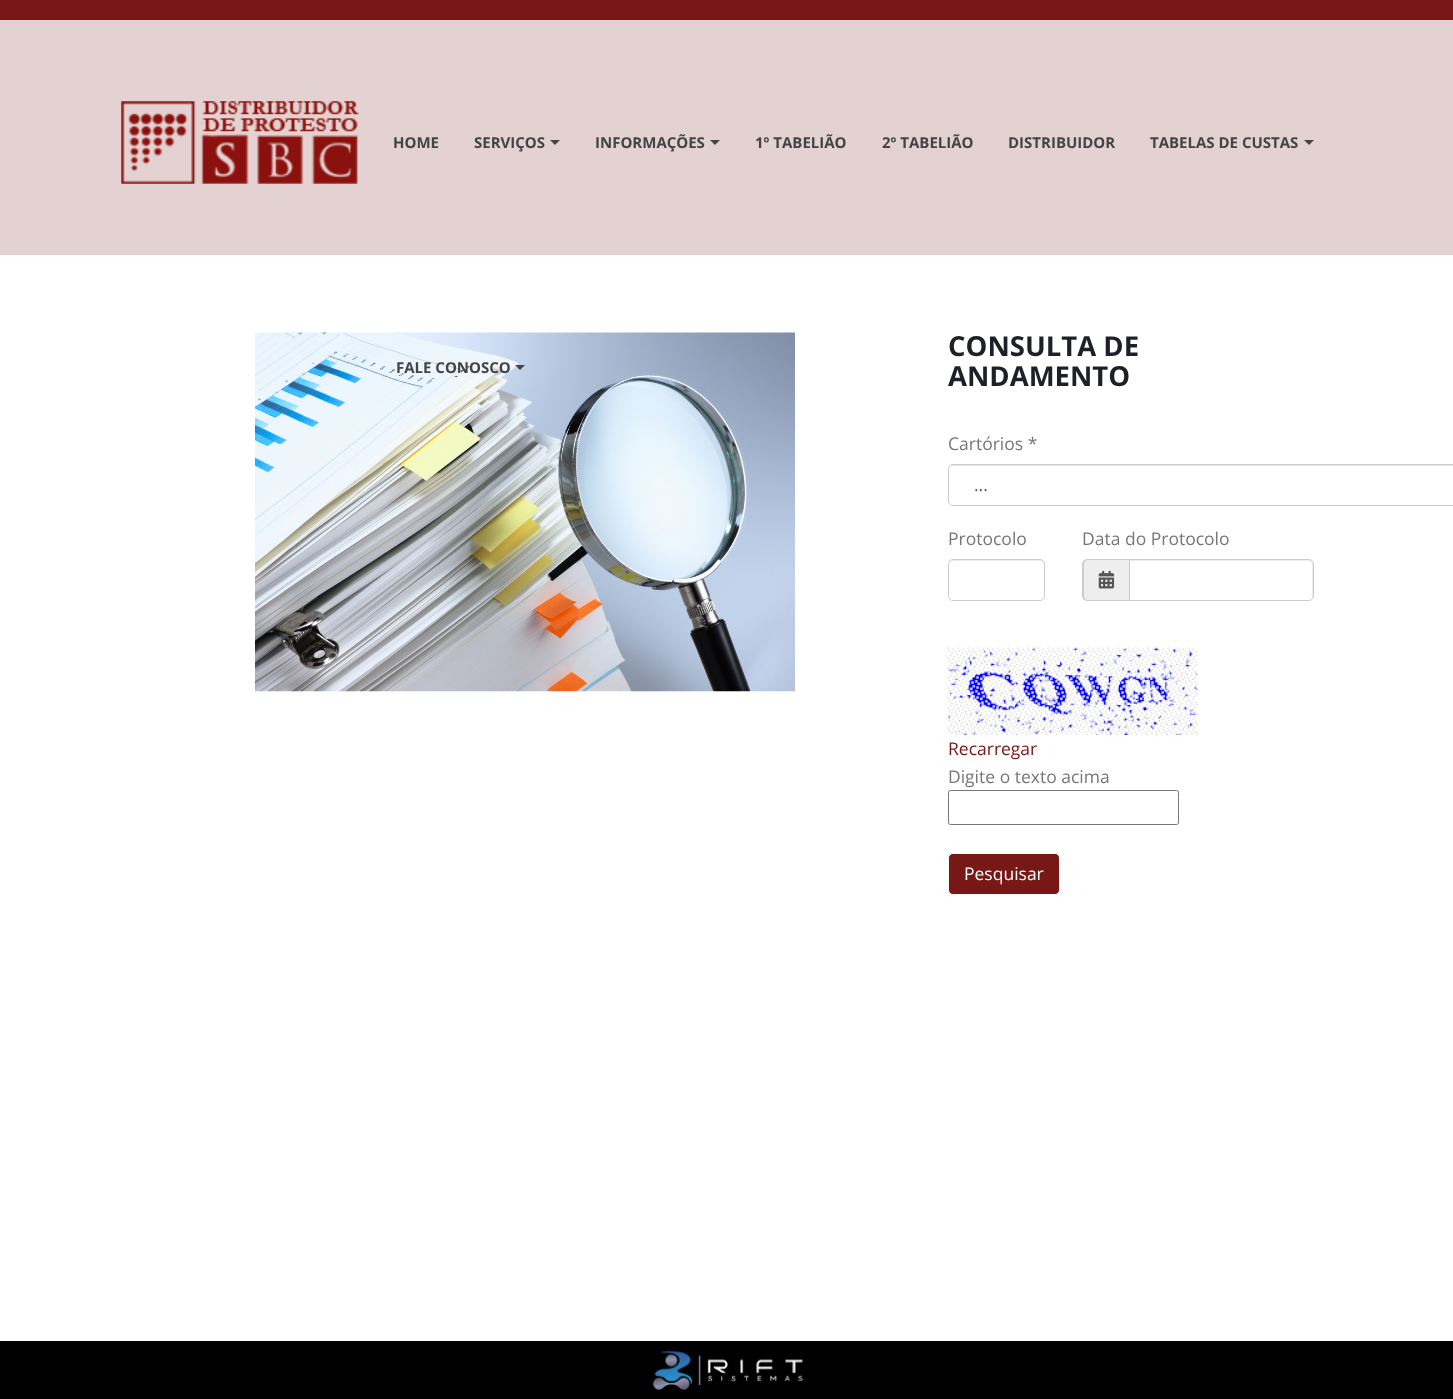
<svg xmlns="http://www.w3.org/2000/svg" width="1453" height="1399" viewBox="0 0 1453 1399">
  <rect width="100%" height="100%" fill="#fff"/>
  <path d="M0 20h1453v235H0z" fill="#e3d2d1"/>
  <path d="M0 0h1453v20H0z" fill="#771816"/>
  <image x="121" y="101" width="238" height="83" href="img/1.png"/>
  <path d="M550 140H560L555 145Z" fill="#444"/>
  <path d="M710 140H720L715 145Z" fill="#444"/>
  <path d="M1304 140H1314L1309 145Z" fill="#444"/>
  <image x="255" y="332" width="540" height="360" href="img/2.png"/>
  <path d="M515 365H525L520 370Z" fill="#444"/>
  <path d="M952 466H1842C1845 466 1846 468 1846 470C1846 467 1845 465 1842 465H953C950 465 949 467 949 470C949 468 950 466 952 466Z" fill="#ececec"/>
  <rect x="948.5" y="464.5" width="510" height="41" rx="4.5" fill="none" stroke="#ccc"/>
  <path d="M952 561H1040C1042 561 1044 563 1044 565C1044 556 1030 560 1026 560H968C963 560 949 556 949 565C949 563 950 561 952 561Z" fill="#ececec"/>
  <rect x="948.5" y="559.5" width="96" height="41" rx="4.5" fill="none" stroke="#ccc"/>
  <path d="M1088 559H1129V601H1088C1085 601 1083 599 1083 596V564C1083 561 1085 559 1088 559Z" fill="#eee"/>
  <path d="M1088 559H1129V601H1088C1085 601 1082 599 1082 596V564C1082 561 1085 559 1088 559ZM1088 560H1129V600H1088C1085 600 1084 598 1084 596V564C1084 562 1085 560 1088 560Z" fill="#ccc" fill-rule="evenodd"/>
  <image x="1098" y="570" width="17" height="19" href="img/3.png"/>
  <path d="M1130 561H1309C1311 561 1312 563 1312 565V599C1313 598 1313 597 1313 596V564C1313 562 1311 560 1309 560H1130Z" fill="#ececec"/>
  <path d="M1129.5 559.5H1309C1311.5 559.5 1313.5 561.5 1313.5 564V596C1313.5 598.5 1311.5 600.5 1309 600.5H1129.5Z" fill="none" stroke="#ccc"/>
  <image x="947" y="647" width="251" height="88" href="img/4.png"/>
  <rect x="948.5" y="790.5" width="230" height="34" rx="2" fill="none" stroke="#767676"/>
  <rect x="948.5" y="853.5" width="111" height="41" rx="4.5" fill="#771816" stroke="#f9f9fa"/>
  <path d="M0 1341h1453v58H0z" fill="#000"/>
  <image x="652" y="1351" width="151" height="39" href="img/5.png"/>
  <g font-family="Open Sans" font-size="15" font-weight="bold" fill="#444">
    <text x="393" y="148">HOME</text>
    <text x="474" y="148">SERVIÇOS</text>
    <text x="595" y="148">INFORMAÇÕES</text>
    <text x="755" y="148">1º TABELIÃO</text>
    <text x="882" y="148">2º TABELIÃO</text>
    <text x="1008" y="148">DISTRIBUIDOR</text>
    <text x="1150" y="148">TABELAS DE CUSTAS</text>
    <text x="396" y="373">FALE CONOSCO</text>
  </g>
  <g font-family="Open Sans" font-size="27.5" font-weight="bold" fill="#1d2127">
    <text x="948" y="356">CONSULTA DE</text>
    <text x="948" y="386">ANDAMENTO</text>
  </g>
  <text x="948" y="450" font-family="Open Sans" font-size="17.5" fill="#777">Cartórios *</text>
  <text x="974" y="491" font-family="Open Sans" font-size="17.5" fill="#555">...</text>
  <g font-family="Open Sans" font-size="17.5" fill="#777">
    <text x="948" y="545">Protocolo</text>
    <text x="1082" y="545">Data do Protocolo</text>
  </g>
  <text x="948" y="755" font-family="Open Sans" font-size="17.5" fill="#771816">Recarregar</text>
  <text x="948" y="783" font-family="Open Sans" font-size="17.5" fill="#777">Digite o texto acima</text>
  <text x="964" y="880" font-family="Open Sans" font-size="17.5" fill="#fff">Pesquisar</text>
</svg>
